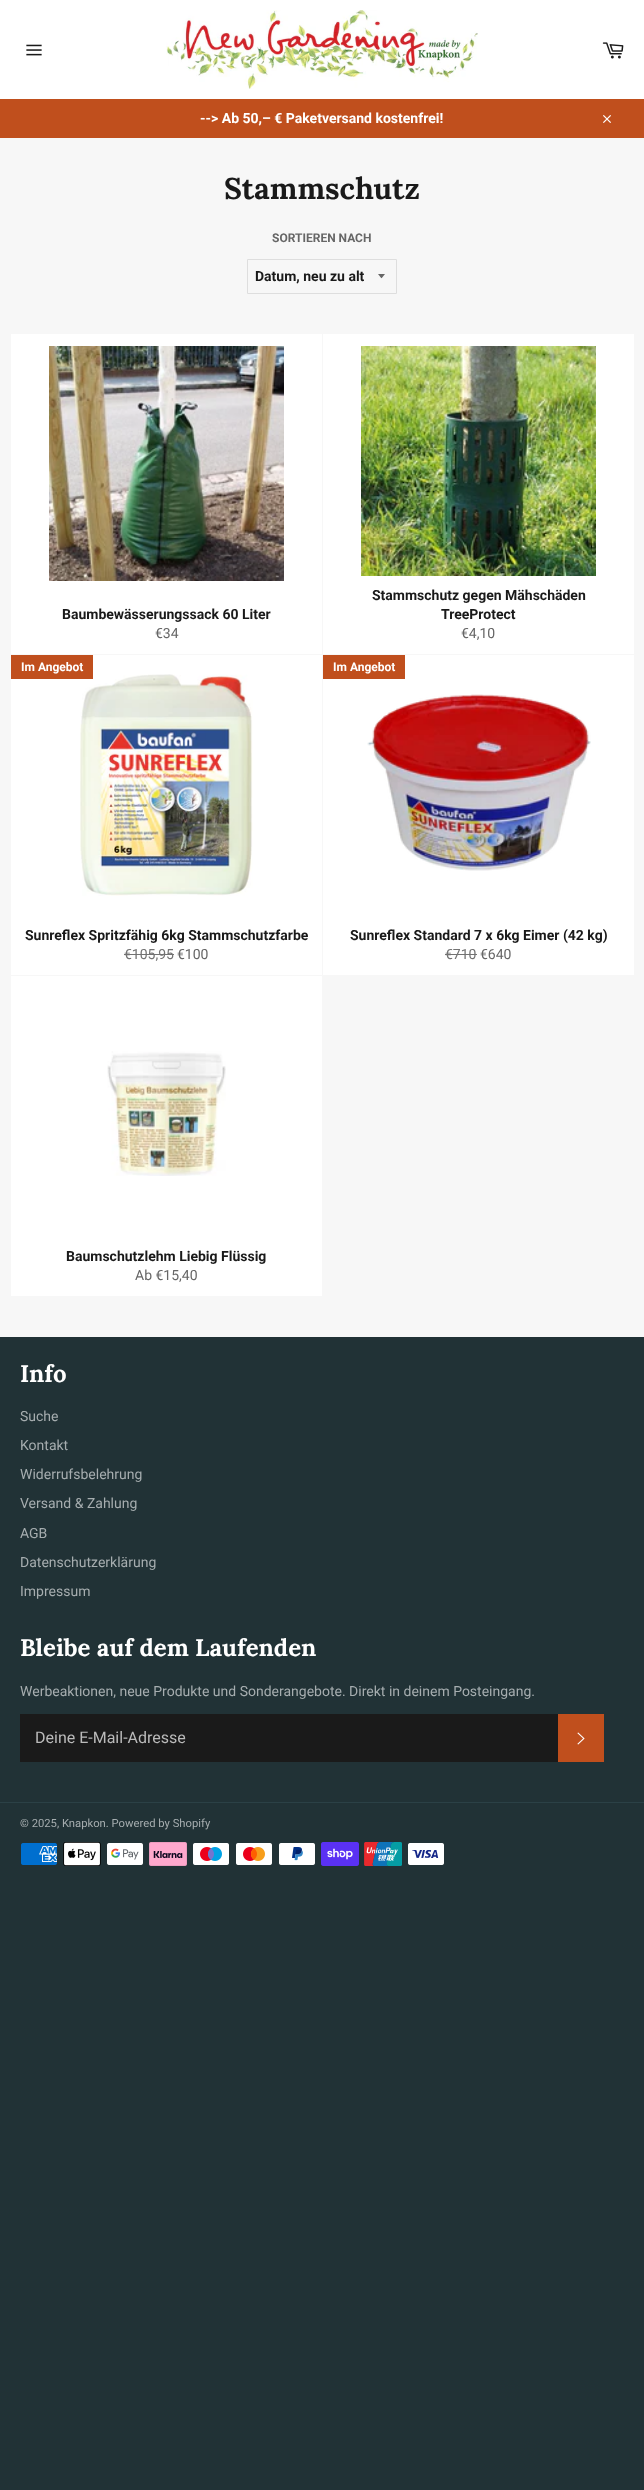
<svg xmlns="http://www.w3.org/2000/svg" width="644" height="2490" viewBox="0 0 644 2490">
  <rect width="100%" height="100%" fill="#213236"/>
  <path d="M0 138h644v1199H0z" fill="#f7f7f7"/>
  <path d="M0 0h644v99H0z" fill="#fff"/>
  <image x="26" y="44" width="16" height="12" href="img/1.png"/>
  <image x="166" y="10" width="312" height="79" href="img/2.png"/>
  <image x="602" y="42" width="22" height="17" href="img/3.png"/>
  <path d="M0 99h644v39H0z" fill="#c04f1d"/>
  <image x="603" y="115" width="8" height="8" href="img/4.png"/>
  <path d="M378 274C382.5 279.5 380.5 279.5 385 274Z" fill="#666"/>
  <path d="M247.5 259.5h149v34H247.5z" fill="none" stroke="#dedede"/>
  <path d="M11 334h311v320H11z" fill="#fff"/>
  <image x="49" y="346" width="235" height="235" href="img/5.png"/>
  <path d="M323 334h311v320H323z" fill="#fff"/>
  <image x="361" y="346" width="235" height="230" href="img/6.png"/>
  <path d="M11 655h311v320H11z" fill="#fff"/>
  <image x="80" y="674" width="173" height="222" href="img/7.png"/>
  <path d="M11 655h82v24H11z" fill="#c04f1d"/>
  <path d="M124 954h50v1H124z" fill="#737373"/>
  <path d="M323 655h311v320H323z" fill="#fff"/>
  <path d="M323 655h82v24H323z" fill="#c04f1d"/>
  <image x="367" y="694" width="224" height="177" href="img/8.png"/>
  <path d="M445 954h32v1H445z" fill="#737373"/>
  <path d="M11 976h311v320H11z" fill="#fff"/>
  <image x="107" y="1051" width="119" height="125" href="img/9.png"/>
  <path d="M20 1714h538v48H20z" fill="#1a1a1a"/>
  <path d="M558 1714h46v48H558z" fill="#c04f1d"/>
  <image x="577" y="1732" width="8" height="13" href="img/10.png"/>
  <path d="M0 1802h644v1H0z" fill="#2b4146"/>
  <image x="21" y="1843" width="36" height="22" href="img/11.png"/>
  <image x="63" y="1842" width="38" height="24" href="img/12.png"/>
  <image x="107" y="1843" width="36" height="22" href="img/13.png"/>
  <image x="149" y="1842" width="38" height="24" href="img/14.png"/>
  <image x="193" y="1843" width="36" height="22" href="img/15.png"/>
  <image x="236" y="1843" width="36" height="22" href="img/16.png"/>
  <image x="279" y="1843" width="36" height="22" href="img/17.png"/>
  <image x="321" y="1842" width="38" height="24" href="img/18.png"/>
  <image x="364" y="1842" width="38" height="24" href="img/19.png"/>
  <image x="408" y="1843" width="36" height="22" href="img/20.png"/>
  <text x="200" y="123" font-family="Roboto" font-size="14" font-weight="bold" fill="#fff">--&gt; Ab 50,– € Paketversand kostenfrei!</text>
  <text x="224" y="199" font-family="Lora" font-size="30" font-weight="bold" fill="#1a1a1a">Stammschutz</text>
  <text x="272" y="242" font-family="Roboto" font-size="12" font-weight="bold" fill="#666">SORTIEREN NACH</text>
  <g font-family="Roboto" font-size="14" font-weight="bold" fill="#1a1a1a">
    <text x="255" y="281">Datum, neu zu alt</text>
    <text x="62" y="619">Baumbewässerungssack 60 Liter</text>
  </g>
  <text x="155" y="638" font-family="Roboto" font-size="14" fill="#666">€34</text>
  <g font-family="Roboto" font-size="14" font-weight="bold" fill="#1a1a1a">
    <text x="372" y="600">Stammschutz gegen Mähschäden</text>
    <text x="441" y="619">TreeProtect</text>
  </g>
  <text x="461" y="638" font-family="Roboto" font-size="14" fill="#666">€4,10</text>
  <text x="21" y="671" font-family="Roboto" font-size="12" font-weight="bold" fill="#fff">Im Angebot</text>
  <text x="25" y="940" font-family="Roboto" font-size="14" font-weight="bold" fill="#1a1a1a">Sunreflex Spritzfähig 6kg Stammschutzfarbe</text>
  <text x="124" y="959" font-family="Roboto" font-size="14" fill="#737373">€105,95</text>
  <text x="177" y="959" font-family="Roboto" font-size="14" fill="#666">€100</text>
  <text x="333" y="671" font-family="Roboto" font-size="12" font-weight="bold" fill="#fff">Im Angebot</text>
  <text x="350" y="940" font-family="Roboto" font-size="14" font-weight="bold" fill="#1a1a1a">Sunreflex Standard 7 x 6kg Eimer (42 kg)</text>
  <text x="445" y="959" font-family="Roboto" font-size="14" fill="#737373">€710</text>
  <text x="480" y="959" font-family="Roboto" font-size="14" fill="#666">€640</text>
  <text x="66" y="1261" font-family="Roboto" font-size="14" font-weight="bold" fill="#1a1a1a">Baumschutzlehm Liebig Flüssig</text>
  <text x="135" y="1280" font-family="Roboto" font-size="14" fill="#666">Ab €15,40</text>
  <text x="20" y="1382" font-family="Lora" font-size="24" font-weight="bold" fill="#fff">Info</text>
  <g font-family="Roboto" font-size="14" fill="#a6adaf">
    <text x="20" y="1421">Suche</text>
    <text x="20" y="1450">Kontakt</text>
    <text x="20" y="1479">Widerrufsbelehrung</text>
    <text x="20" y="1508">Versand &amp; Zahlung</text>
    <text x="20" y="1538">AGB</text>
    <text x="20" y="1567">Datenschutzerklärung</text>
    <text x="20" y="1596">Impressum</text>
  </g>
  <text x="20" y="1656" font-family="Lora" font-size="24" font-weight="bold" fill="#fff">Bleibe auf dem Laufenden</text>
  <text x="20" y="1696" font-family="Roboto" font-size="14" fill="#a6adaf">Werbeaktionen, neue Produkte und Sonderangebote. Direkt in deinem Posteingang.</text>
  <text x="35" y="1743" font-family="Roboto" font-size="16" fill="#bababa">Deine E-Mail-Adresse</text>
  <text x="20" y="1827" font-family="Roboto" font-size="11.25" fill="#a6adaf">© 2025, Knapkon. Powered by Shopify</text>
</svg>
